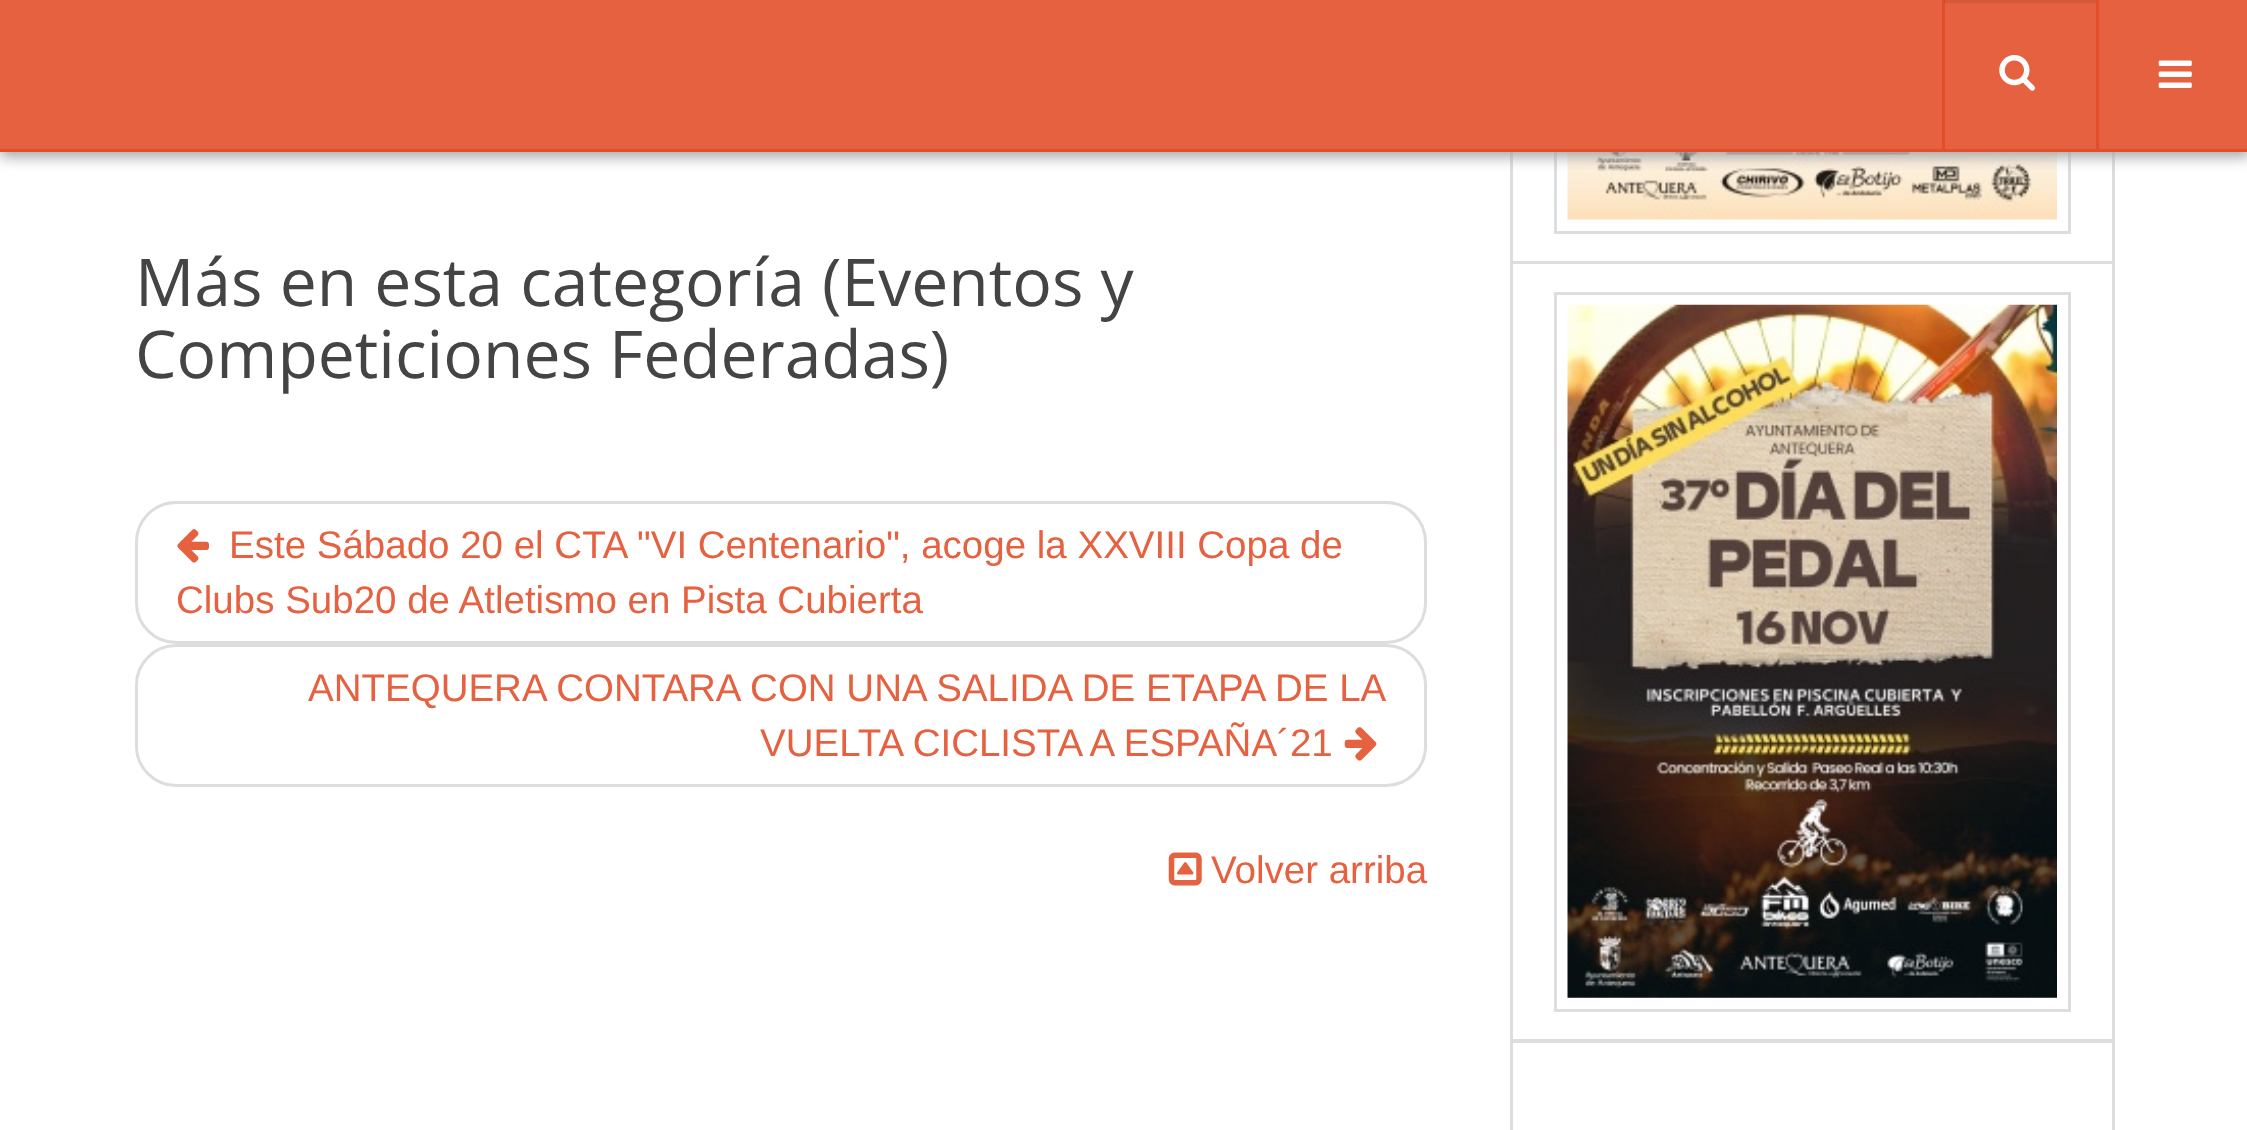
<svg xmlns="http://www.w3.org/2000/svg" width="2247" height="1130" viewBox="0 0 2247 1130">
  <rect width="100%" height="100%" fill="#fff"/>
  <path d="M1511.5 -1.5h602v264H1511.5z" fill="none" stroke="#ddd" stroke-width="3"/>
  <path d="M1555.5 -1.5h514v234H1555.5z" fill="none" stroke="#ddd" stroke-width="3"/>
  <image x="1567" y="152" width="490" height="68" href="img/6.png"/>
  <path d="M0 6h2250v151H0z" fill="#a5a5a5" filter="blur(7px)"/>
  <path d="M0 0h2247v149H0z" fill="#e56140"/>
  <path d="M0 149h2247v3H0z" fill="#e24e2a"/>
  <path d="M2096 0h3v149H2096z" fill="#e24e2a"/>
  <path d="M1942 0h3v149H1942z" fill="#e24e2a"/>
  <path d="M1944 0h152v3H1944z" fill="#00000012"/>
  <image x="1999" y="55" width="36" height="36" href="img/1.png"/>
  <image x="2158" y="60" width="34" height="28" href="img/2.png"/>
  <rect x="136.5" y="502.5" width="1289" height="140" rx="39.5" fill="none" stroke="#ddd" stroke-width="3"/>
  <image x="177" y="529" width="32" height="34" href="img/3.png"/>
  <rect x="136.5" y="645.5" width="1289" height="140" rx="39.5" fill="none" stroke="#ddd" stroke-width="3"/>
  <image x="1344" y="727" width="33" height="34" href="img/4.png"/>
  <image x="1168" y="852" width="34" height="34" href="img/5.png"/>
  <path d="M1511.5 262.5h602v778H1511.5z" fill="none" stroke="#ddd" stroke-width="3"/>
  <path d="M1555.5 293.5h514v717H1555.5z" fill="none" stroke="#ddd" stroke-width="3"/>
  <image x="1567" y="304" width="490" height="694" href="img/7.png"/>
  <path d="M1511.5 1041.5h602v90H1511.5z" fill="none" stroke="#ddd" stroke-width="3"/>
  <g font-family="Open Sans" font-size="66" fill="#444">
    <text x="135" y="306">Más en esta categoría (Eventos y</text>
    <text x="135" y="378">Competiciones Federadas)</text>
  </g>
  <g font-family="Liberation Sans" font-size="38.5" fill="#e56140">
    <text x="229" y="558">Este Sábado 20 el CTA "VI Centenario", acoge la XXVIII Copa de</text>
    <text x="176" y="613">Clubs Sub20 de Atletismo en Pista Cubierta</text>
    <text x="308" y="701">ANTEQUERA CONTARA CON UNA SALIDA DE ETAPA DE LA</text>
    <text x="760" y="756">VUELTA CICLISTA A ESPAÑA´21</text>
    <text x="1211" y="883">Volver arriba</text>
  </g>
</svg>
